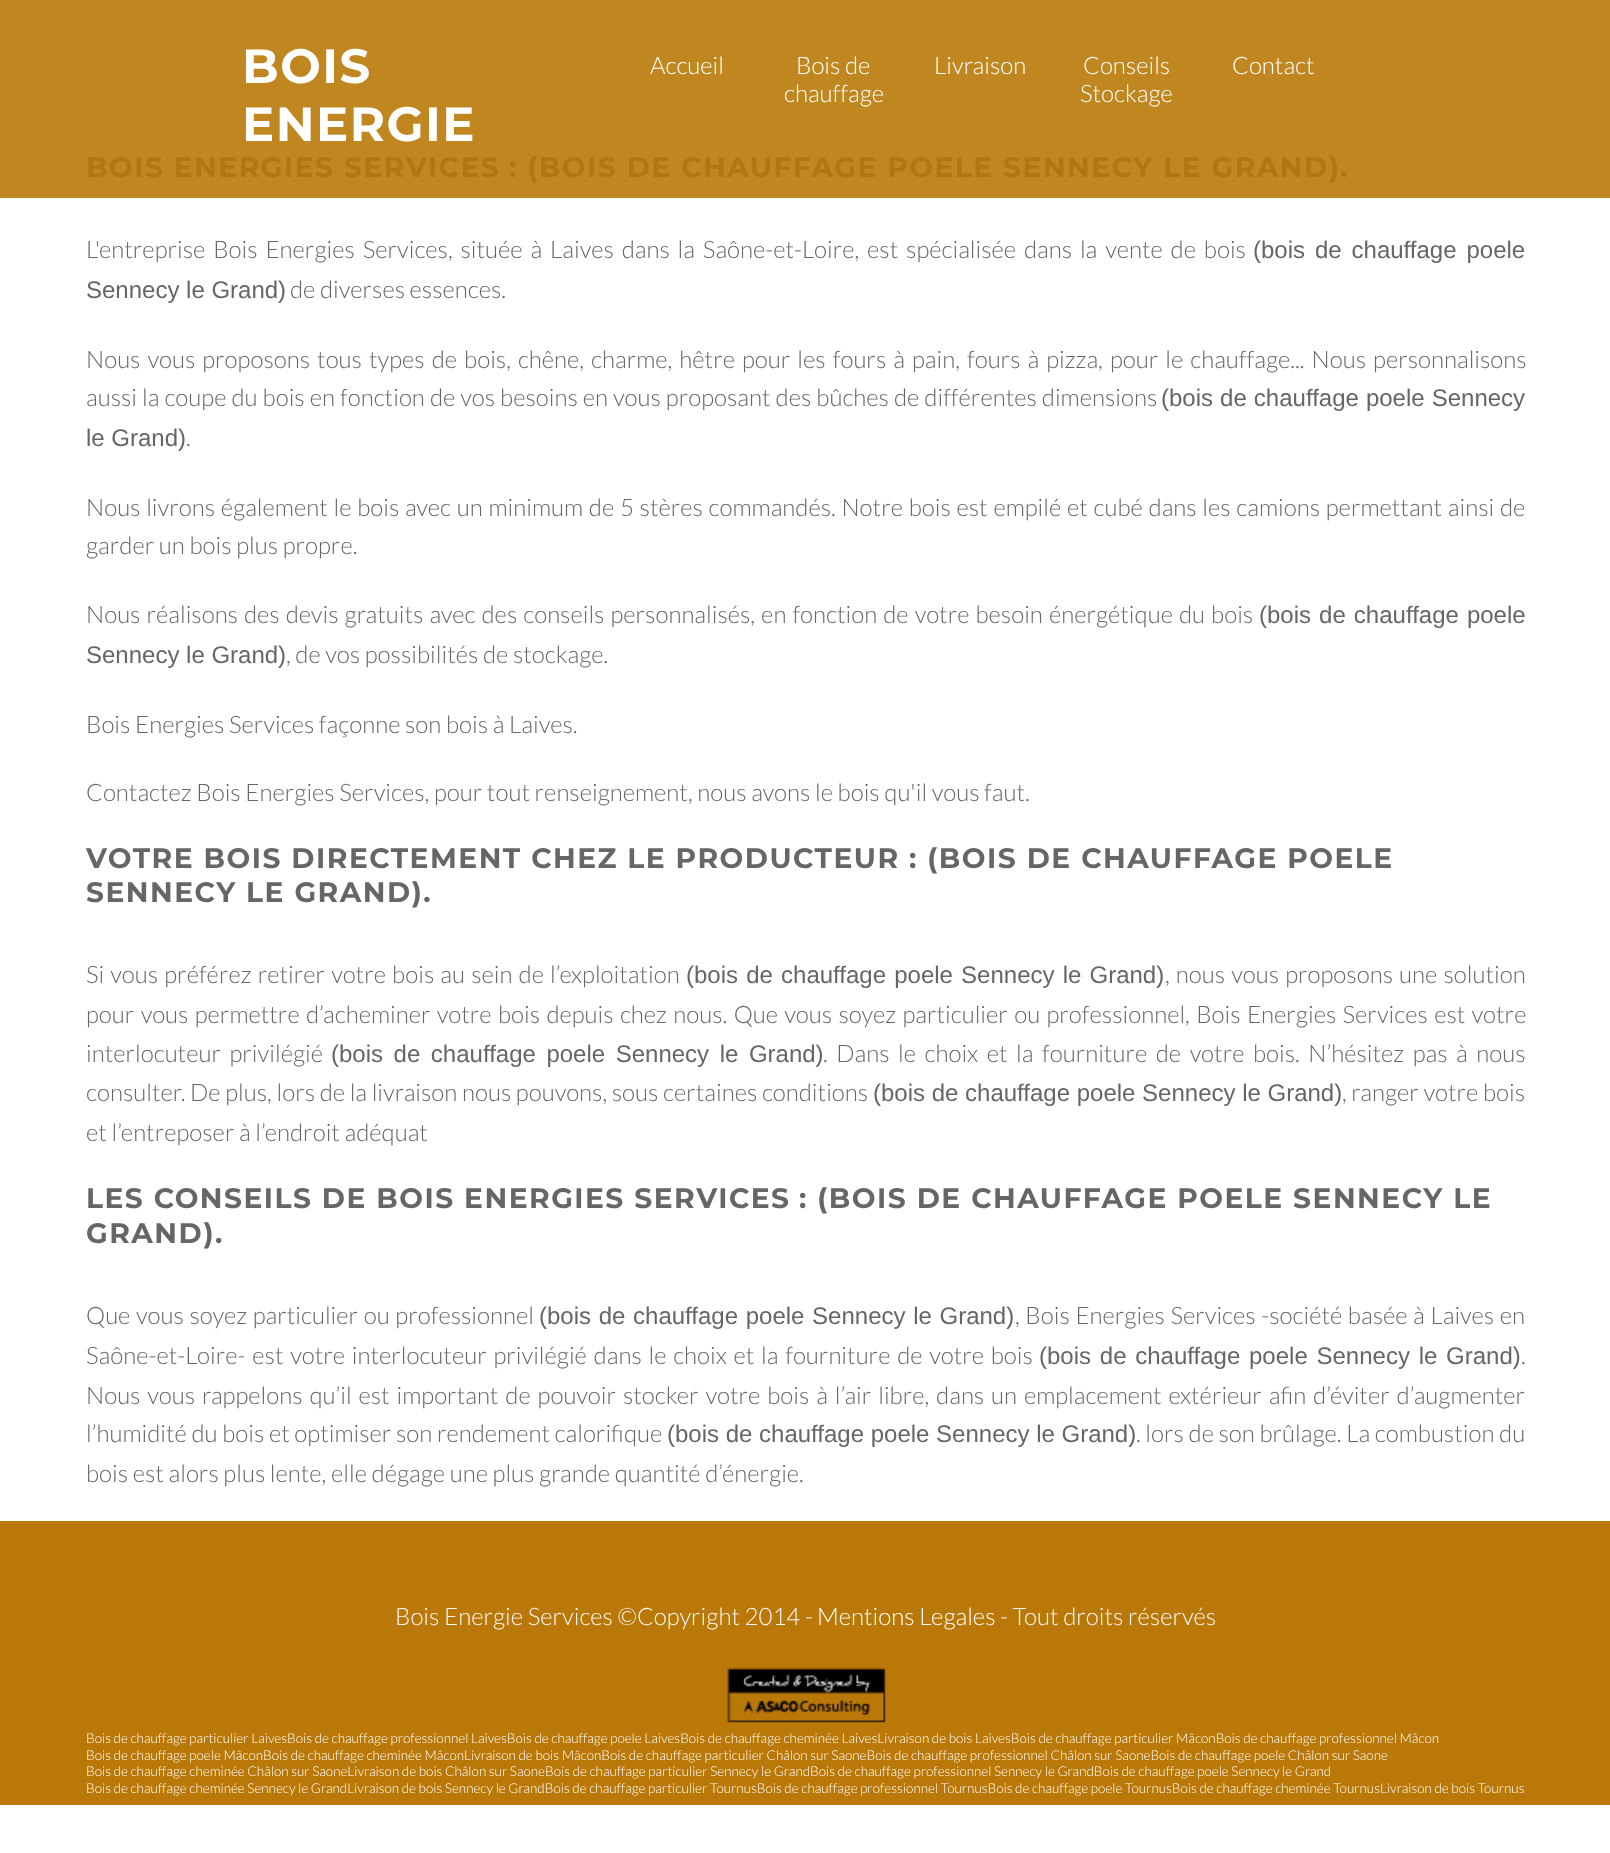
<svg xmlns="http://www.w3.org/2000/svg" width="1610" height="1853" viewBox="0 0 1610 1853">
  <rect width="100%" height="100%" fill="#fff"/>
  <path d="M0 0h1610v198H0z" fill="#c08620"/>
  <path d="M0 1521h1610v284H0z" fill="#b97807"/>
  <image x="727" y="1667" width="159" height="56" href="img/1.png"/>
  <g font-family="Montserrat" font-size="48" font-weight="100" letter-spacing="1.5" fill="#fff">
    <text x="242" y="83">BOIS</text>
    <text x="242" y="141">ENERGIE</text>
  </g>
  <g font-family="Lato" font-size="24" font-weight="300" fill="#fff">
    <text x="650" y="74">Accueil</text>
    <text x="796" y="74">Bois de</text>
    <text x="784" y="102">chauffage</text>
    <text x="934" y="74">Livraison</text>
    <text x="1083" y="74">Conseils</text>
    <text x="1080" y="102">Stockage</text>
    <text x="1232" y="74">Contact</text>
  </g>
  <g font-family="Montserrat" font-size="28.1" font-weight="100" letter-spacing="1.5" fill="#b17610">
    <text x="86" y="177">BOIS ENERGIES SERVICES</text>
    <text x="509" y="177">: (BOIS DE CHAUFFAGE POELE SENNECY LE GRAND).</text>
  </g>
  <text x="86" y="258" word-spacing="3.25" font-family="Lato" font-size="24" font-weight="300" fill="#666">L'entreprise Bois Energies Services, située à Laives dans la Saône-et-Loire, est spécialisée dans la vente de bois</text>
  <g font-family="Liberation Sans" font-size="24" fill="#666">
    <text x="1253" y="258" word-spacing="3.25">(bois de chauffage poele</text>
    <text x="86" y="298">Sennecy le Grand)</text>
  </g>
  <g font-family="Lato" font-size="24" font-weight="300" fill="#666">
    <text x="290" y="298">de diverses essences.</text>
    <text x="86" y="368" word-spacing="2.4">Nous vous proposons tous types de bois, chêne, charme, hêtre pour les fours à pain, fours à pizza, pour le chauffage... Nous personnalisons</text>
    <text x="86" y="406" word-spacing="0.4">aussi la coupe du bois en fonction de vos besoins en vous proposant des bûches de différentes dimensions</text>
  </g>
  <g font-family="Liberation Sans" font-size="24" fill="#666">
    <text x="1161" y="406" word-spacing="0.4">(bois de chauffage poele Sennecy</text>
    <text x="86" y="446">le Grand)</text>
  </g>
  <g font-family="Lato" font-size="24" font-weight="300" fill="#666">
    <text x="186" y="446">.</text>
    <text x="86" y="516" word-spacing="1.1">Nous livrons également le bois avec un minimum de 5 stères commandés. Notre bois est empilé et cubé dans les camions permettant ainsi de</text>
    <text x="86" y="554">garder un bois plus propre.</text>
    <text x="86" y="623" word-spacing="1.4">Nous réalisons des devis gratuits avec des conseils personnalisés, en fonction de votre besoin énergétique du bois</text>
  </g>
  <g font-family="Liberation Sans" font-size="24" fill="#666">
    <text x="1259" y="623" word-spacing="1.4">(bois de chauffage poele</text>
    <text x="86" y="663">Sennecy le Grand)</text>
  </g>
  <g font-family="Lato" font-size="24" font-weight="300" fill="#666">
    <text x="286" y="663">, de vos possibilités de stockage.</text>
    <text x="86" y="733">Bois Energies Services façonne son bois à Laives.</text>
    <text x="86" y="801">Contactez Bois Energies Services, pour tout renseignement, nous avons le bois qu'il vous faut.</text>
  </g>
  <g font-family="Montserrat" font-size="28.1" font-weight="100" letter-spacing="1.5" fill="#666">
    <text x="86" y="868">VOTRE BOIS DIRECTEMENT CHEZ LE PRODUCTEUR : (BOIS DE CHAUFFAGE POELE</text>
    <text x="86" y="902">SENNECY LE GRAND).</text>
  </g>
  <text x="86" y="983" word-spacing="1.5" font-family="Lato" font-size="24" font-weight="300" fill="#666">Si vous préférez retirer votre bois au sein de l’exploitation</text>
  <text x="686" y="983" word-spacing="1.5" font-family="Liberation Sans" font-size="24" fill="#666">(bois de chauffage poele Sennecy le Grand)</text>
  <g font-family="Lato" font-size="24" font-weight="300" fill="#666">
    <text x="1165" y="983" word-spacing="1.5">, nous vous proposons une solution</text>
    <text x="86" y="1023" word-spacing="1.7">pour vous permettre d’acheminer votre bois depuis chez nous. Que vous soyez particulier ou professionnel, Bois Energies Services est votre</text>
    <text x="86" y="1062" word-spacing="3.9">interlocuteur privilégié</text>
  </g>
  <text x="331" y="1062" word-spacing="3.9" font-family="Liberation Sans" font-size="24" fill="#666">(bois de chauffage poele Sennecy le Grand)</text>
  <g font-family="Lato" font-size="24" font-weight="300" fill="#666">
    <text x="823" y="1062" word-spacing="3.9">. Dans le choix et la fourniture de votre bois. N’hésitez pas à nous</text>
    <text x="86" y="1101">consulter. De plus, lors de la livraison nous pouvons, sous certaines conditions</text>
  </g>
  <text x="873" y="1101" font-family="Liberation Sans" font-size="24" fill="#666">(bois de chauffage poele Sennecy le Grand)</text>
  <g font-family="Lato" font-size="24" font-weight="300" fill="#666">
    <text x="1342" y="1101">, ranger votre bois</text>
    <text x="86" y="1141">et l’entreposer à l’endroit adéquat</text>
  </g>
  <g font-family="Montserrat" font-size="28.1" font-weight="100" letter-spacing="1.5" fill="#666">
    <text x="86" y="1208">LES CONSEILS DE BOIS ENERGIES SERVICES</text>
    <text x="799" y="1208">: (BOIS DE CHAUFFAGE POELE SENNECY LE</text>
    <text x="86" y="1243">GRAND).</text>
  </g>
  <text x="86" y="1324" word-spacing="1" font-family="Lato" font-size="24" font-weight="300" fill="#666">Que vous soyez particulier ou professionnel</text>
  <text x="539" y="1324" word-spacing="1" font-family="Liberation Sans" font-size="24" fill="#666">(bois de chauffage poele Sennecy le Grand)</text>
  <g font-family="Lato" font-size="24" font-weight="300" fill="#666">
    <text x="1015" y="1324" word-spacing="1">, Bois Energies Services -société basée à Laives en</text>
    <text x="86" y="1364" word-spacing="2.1">Saône-et-Loire- est votre interlocuteur privilégié dans le choix et la fourniture de votre bois</text>
  </g>
  <text x="1039" y="1364" word-spacing="2.1" font-family="Liberation Sans" font-size="24" fill="#666">(bois de chauffage poele Sennecy le Grand)</text>
  <g font-family="Lato" font-size="24" font-weight="300" fill="#666">
    <text x="1521" y="1364">.</text>
    <text x="86" y="1404" word-spacing="2.25">Nous vous rappelons qu’il est important de pouvoir stocker votre bois à l’air libre, dans un emplacement extérieur afin d’éviter d’augmenter</text>
    <text x="86" y="1442">l’humidité du bois et optimiser son rendement calorifique</text>
  </g>
  <text x="667" y="1442" font-family="Liberation Sans" font-size="24" fill="#666">(bois de chauffage poele Sennecy le Grand)</text>
  <g font-family="Lato" font-size="24" font-weight="300" fill="#666">
    <text x="1136" y="1442">. lors de son brûlage. La combustion du</text>
    <text x="86" y="1482">bois est alors plus lente, elle dégage une plus grande quantité d’énergie.</text>
  </g>
  <text x="395" y="1625" font-family="Lato" font-size="24" font-weight="300" fill="#f8f8f8">Bois Energie Services ©Copyright 2014 -</text>
  <text x="817" y="1625" font-family="Lato" font-size="24" font-weight="300" fill="#fff">Mentions Legales</text>
  <text x="1000" y="1625" font-family="Lato" font-size="24" font-weight="300" fill="#f8f8f8">- Tout droits réservés</text>
  <g font-family="Lato" font-size="13.5" font-weight="300" fill="#fff">
    <text x="86" y="1743">Bois de chauffage particulier LaivesBois de chauffage professionnel LaivesBois de chauffage poele LaivesBois de chauffage cheminée LaivesLivraison de bois LaivesBois de chauffage particulier MâconBois de chauffage professionnel Mâcon</text>
    <text x="86" y="1760">Bois de chauffage poele MâconBois de chauffage cheminée MâconLivraison de bois MâconBois de chauffage particulier Châlon sur SaoneBois de chauffage professionnel Châlon sur SaoneBois de chauffage poele Châlon sur Saone</text>
    <text x="86" y="1776">Bois de chauffage cheminée Châlon sur SaoneLivraison de bois Châlon sur SaoneBois de chauffage particulier Sennecy le GrandBois de chauffage professionnel Sennecy le GrandBois de chauffage poele Sennecy le Grand</text>
    <text x="86" y="1793">Bois de chauffage cheminée Sennecy le GrandLivraison de bois Sennecy le GrandBois de chauffage particulier TournusBois de chauffage professionnel TournusBois de chauffage poele TournusBois de chauffage cheminée TournusLivraison de bois Tournus</text>
  </g>
</svg>
